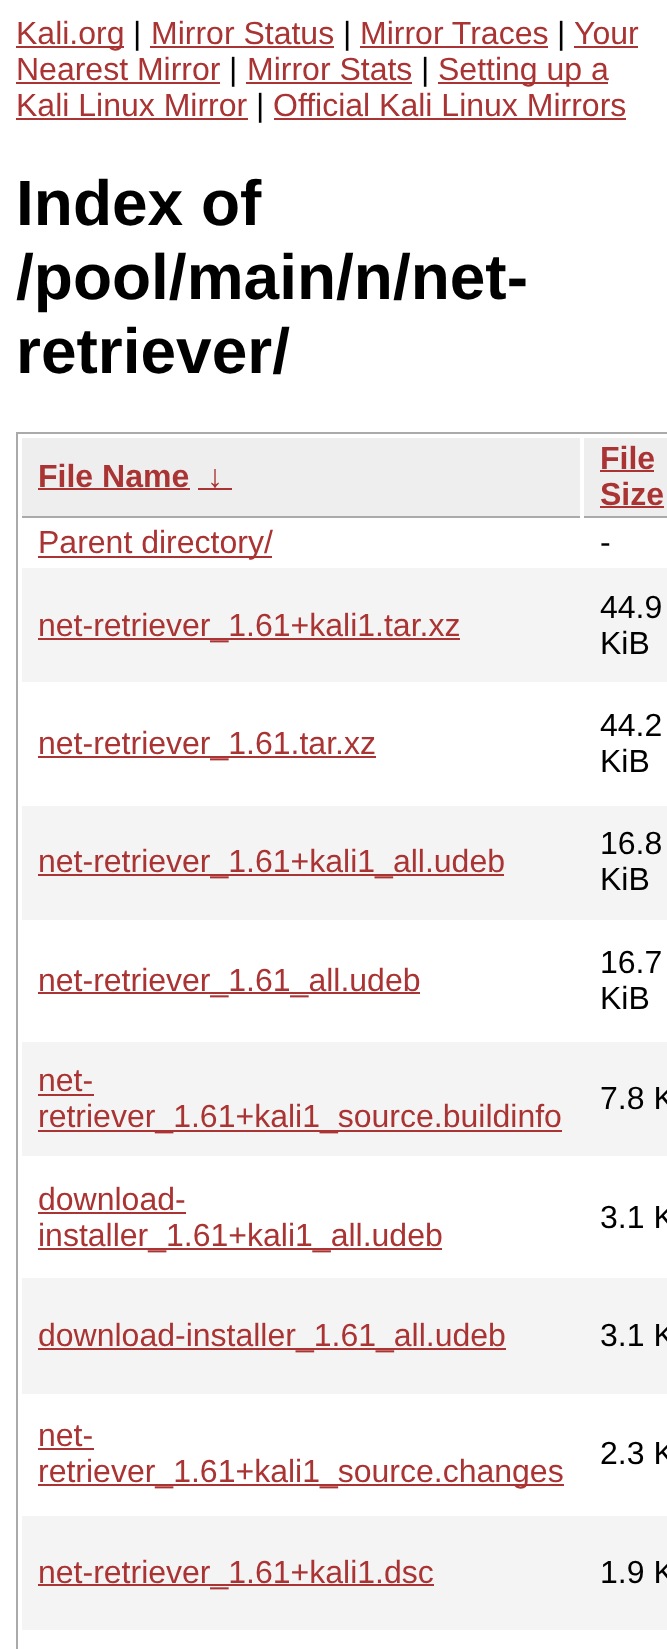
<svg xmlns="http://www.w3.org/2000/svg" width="667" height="1649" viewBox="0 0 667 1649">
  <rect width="100%" height="100%" fill="#fff"/>
  <path d="M16 46h108v2H16z" fill="#a33"/>
  <path d="M150 46h184v2H150z" fill="#a33"/>
  <path d="M360 46h188v2H360z" fill="#a33"/>
  <path d="M574 46h64v2H574z" fill="#a33"/>
  <path d="M16 82h204v2H16z" fill="#a33"/>
  <path d="M246 82h166v2H246z" fill="#a33"/>
  <path d="M438 82h170v2H438z" fill="#a33"/>
  <path d="M16 118h232v2H16z" fill="#a33"/>
  <path d="M274 118h352v2H274z" fill="#a33"/>
  <path d="M17 433h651v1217H17z" fill="none" stroke="#aaa" stroke-width="2"/>
  <path d="M22 438h558v78H22z" fill="#eee"/>
  <path d="M22 516h558v2H22z" fill="#aaa"/>
  <path d="M38 488h152v2H38z" fill="#a33"/>
  <path d="M198 488h34v2H198z" fill="#a33"/>
  <path d="M584 438h83v78H584z" fill="#eee"/>
  <path d="M584 516h83v2H584z" fill="#aaa"/>
  <path d="M600 470h54v2H600z" fill="#a33"/>
  <path d="M600 506h64v2H600z" fill="#a33"/>
  <path d="M38 556h234v2H38z" fill="#a33"/>
  <path d="M22 568h645v114H22z" fill="#f4f4f4"/>
  <path d="M38 638h422v2H38z" fill="#a33"/>
  <path d="M38 756h338v2H38z" fill="#a33"/>
  <path d="M22 806h645v114H22z" fill="#f4f4f4"/>
  <path d="M38 874h466v2H38z" fill="#a33"/>
  <path d="M38 992h382v2H38z" fill="#a33"/>
  <path d="M22 1042h645v114H22z" fill="#f4f4f4"/>
  <path d="M38 1094h56v2H38z" fill="#a33"/>
  <path d="M38 1130h524v2H38z" fill="#a33"/>
  <path d="M38 1212h148v2H38z" fill="#a33"/>
  <path d="M38 1248h404v2H38z" fill="#a33"/>
  <path d="M22 1278h645v116H22z" fill="#f4f4f4"/>
  <path d="M38 1348h468v2H38z" fill="#a33"/>
  <path d="M38 1448h56v2H38z" fill="#a33"/>
  <path d="M38 1484h526v2H38z" fill="#a33"/>
  <path d="M22 1516h645v114H22z" fill="#f4f4f4"/>
  <path d="M38 1584h396v2H38z" fill="#a33"/>
  <text x="16" y="44" font-family="Liberation Sans" font-size="32" fill="#a33">Kali.org</text>
  <text x="133" y="44" font-family="Liberation Sans" font-size="32" fill="#000">|</text>
  <text x="151" y="44" font-family="Liberation Sans" font-size="32" fill="#a33">Mirror Status</text>
  <text x="343" y="44" font-family="Liberation Sans" font-size="32" fill="#000">|</text>
  <text x="360" y="44" font-family="Liberation Sans" font-size="32" fill="#a33">Mirror Traces</text>
  <text x="557" y="44" font-family="Liberation Sans" font-size="32" fill="#000">|</text>
  <g font-family="Liberation Sans" font-size="32" fill="#a33">
    <text x="574" y="44">Your</text>
    <text x="16" y="80">Nearest Mirror</text>
  </g>
  <text x="229" y="80" font-family="Liberation Sans" font-size="32" fill="#000">|</text>
  <text x="247" y="80" font-family="Liberation Sans" font-size="32" fill="#a33">Mirror Stats</text>
  <text x="421" y="80" font-family="Liberation Sans" font-size="32" fill="#000">|</text>
  <g font-family="Liberation Sans" font-size="32" fill="#a33">
    <text x="438" y="80">Setting up a</text>
    <text x="16" y="116">Kali Linux Mirror</text>
  </g>
  <text x="256" y="116" font-family="Liberation Sans" font-size="32" fill="#000">|</text>
  <text x="273" y="116" font-family="Liberation Sans" font-size="32" fill="#a33">Official Kali Linux Mirrors</text>
  <g font-family="Liberation Sans" font-size="64" font-weight="bold" fill="#000">
    <text x="16" y="225">Index of</text>
    <text x="16" y="299">/pool/main/n/net-</text>
    <text x="16" y="373">retriever/</text>
  </g>
  <g font-family="Liberation Sans" font-size="32" font-weight="bold" fill="#a33">
    <text x="38" y="487">File Name</text>
    <text x="207" y="487">↓</text>
    <text x="600" y="469">File</text>
    <text x="600" y="505">Size</text>
  </g>
  <text x="38" y="553" font-family="Liberation Sans" font-size="32" fill="#a33">Parent directory/</text>
  <text x="600" y="553" font-family="Liberation Sans" font-size="32" fill="#000">-</text>
  <text x="38" y="636" font-family="Liberation Sans" font-size="32" fill="#a33">net-retriever_1.61+kali1.tar.xz</text>
  <g font-family="Liberation Sans" font-size="32" fill="#000">
    <text x="600" y="618">44.9</text>
    <text x="600" y="654">KiB</text>
  </g>
  <text x="38" y="754" font-family="Liberation Sans" font-size="32" fill="#a33">net-retriever_1.61.tar.xz</text>
  <g font-family="Liberation Sans" font-size="32" fill="#000">
    <text x="600" y="736">44.2</text>
    <text x="600" y="772">KiB</text>
  </g>
  <text x="38" y="872" font-family="Liberation Sans" font-size="32" fill="#a33">net-retriever_1.61+kali1_all.udeb</text>
  <g font-family="Liberation Sans" font-size="32" fill="#000">
    <text x="600" y="854">16.8</text>
    <text x="600" y="890">KiB</text>
  </g>
  <text x="38" y="991" font-family="Liberation Sans" font-size="32" fill="#a33">net-retriever_1.61_all.udeb</text>
  <g font-family="Liberation Sans" font-size="32" fill="#000">
    <text x="600" y="973">16.7</text>
    <text x="600" y="1009">KiB</text>
  </g>
  <g font-family="Liberation Sans" font-size="32" fill="#a33">
    <text x="38" y="1091">net-</text>
    <text x="38" y="1127">retriever_1.61+kali1_source.buildinfo</text>
  </g>
  <text x="600" y="1109" font-family="Liberation Sans" font-size="32" fill="#000">7.8 K</text>
  <g font-family="Liberation Sans" font-size="32" fill="#a33">
    <text x="38" y="1210">download-</text>
    <text x="38" y="1246">installer_1.61+kali1_all.udeb</text>
  </g>
  <text x="600" y="1228" font-family="Liberation Sans" font-size="32" fill="#000">3.1 K</text>
  <text x="38" y="1346" font-family="Liberation Sans" font-size="32" fill="#a33">download-installer_1.61_all.udeb</text>
  <text x="600" y="1346" font-family="Liberation Sans" font-size="32" fill="#000">3.1 K</text>
  <g font-family="Liberation Sans" font-size="32" fill="#a33">
    <text x="38" y="1446">net-</text>
    <text x="38" y="1482">retriever_1.61+kali1_source.changes</text>
  </g>
  <text x="600" y="1464" font-family="Liberation Sans" font-size="32" fill="#000">2.3 K</text>
  <text x="38" y="1583" font-family="Liberation Sans" font-size="32" fill="#a33">net-retriever_1.61+kali1.dsc</text>
  <text x="600" y="1583" font-family="Liberation Sans" font-size="32" fill="#000">1.9 K</text>
</svg>
